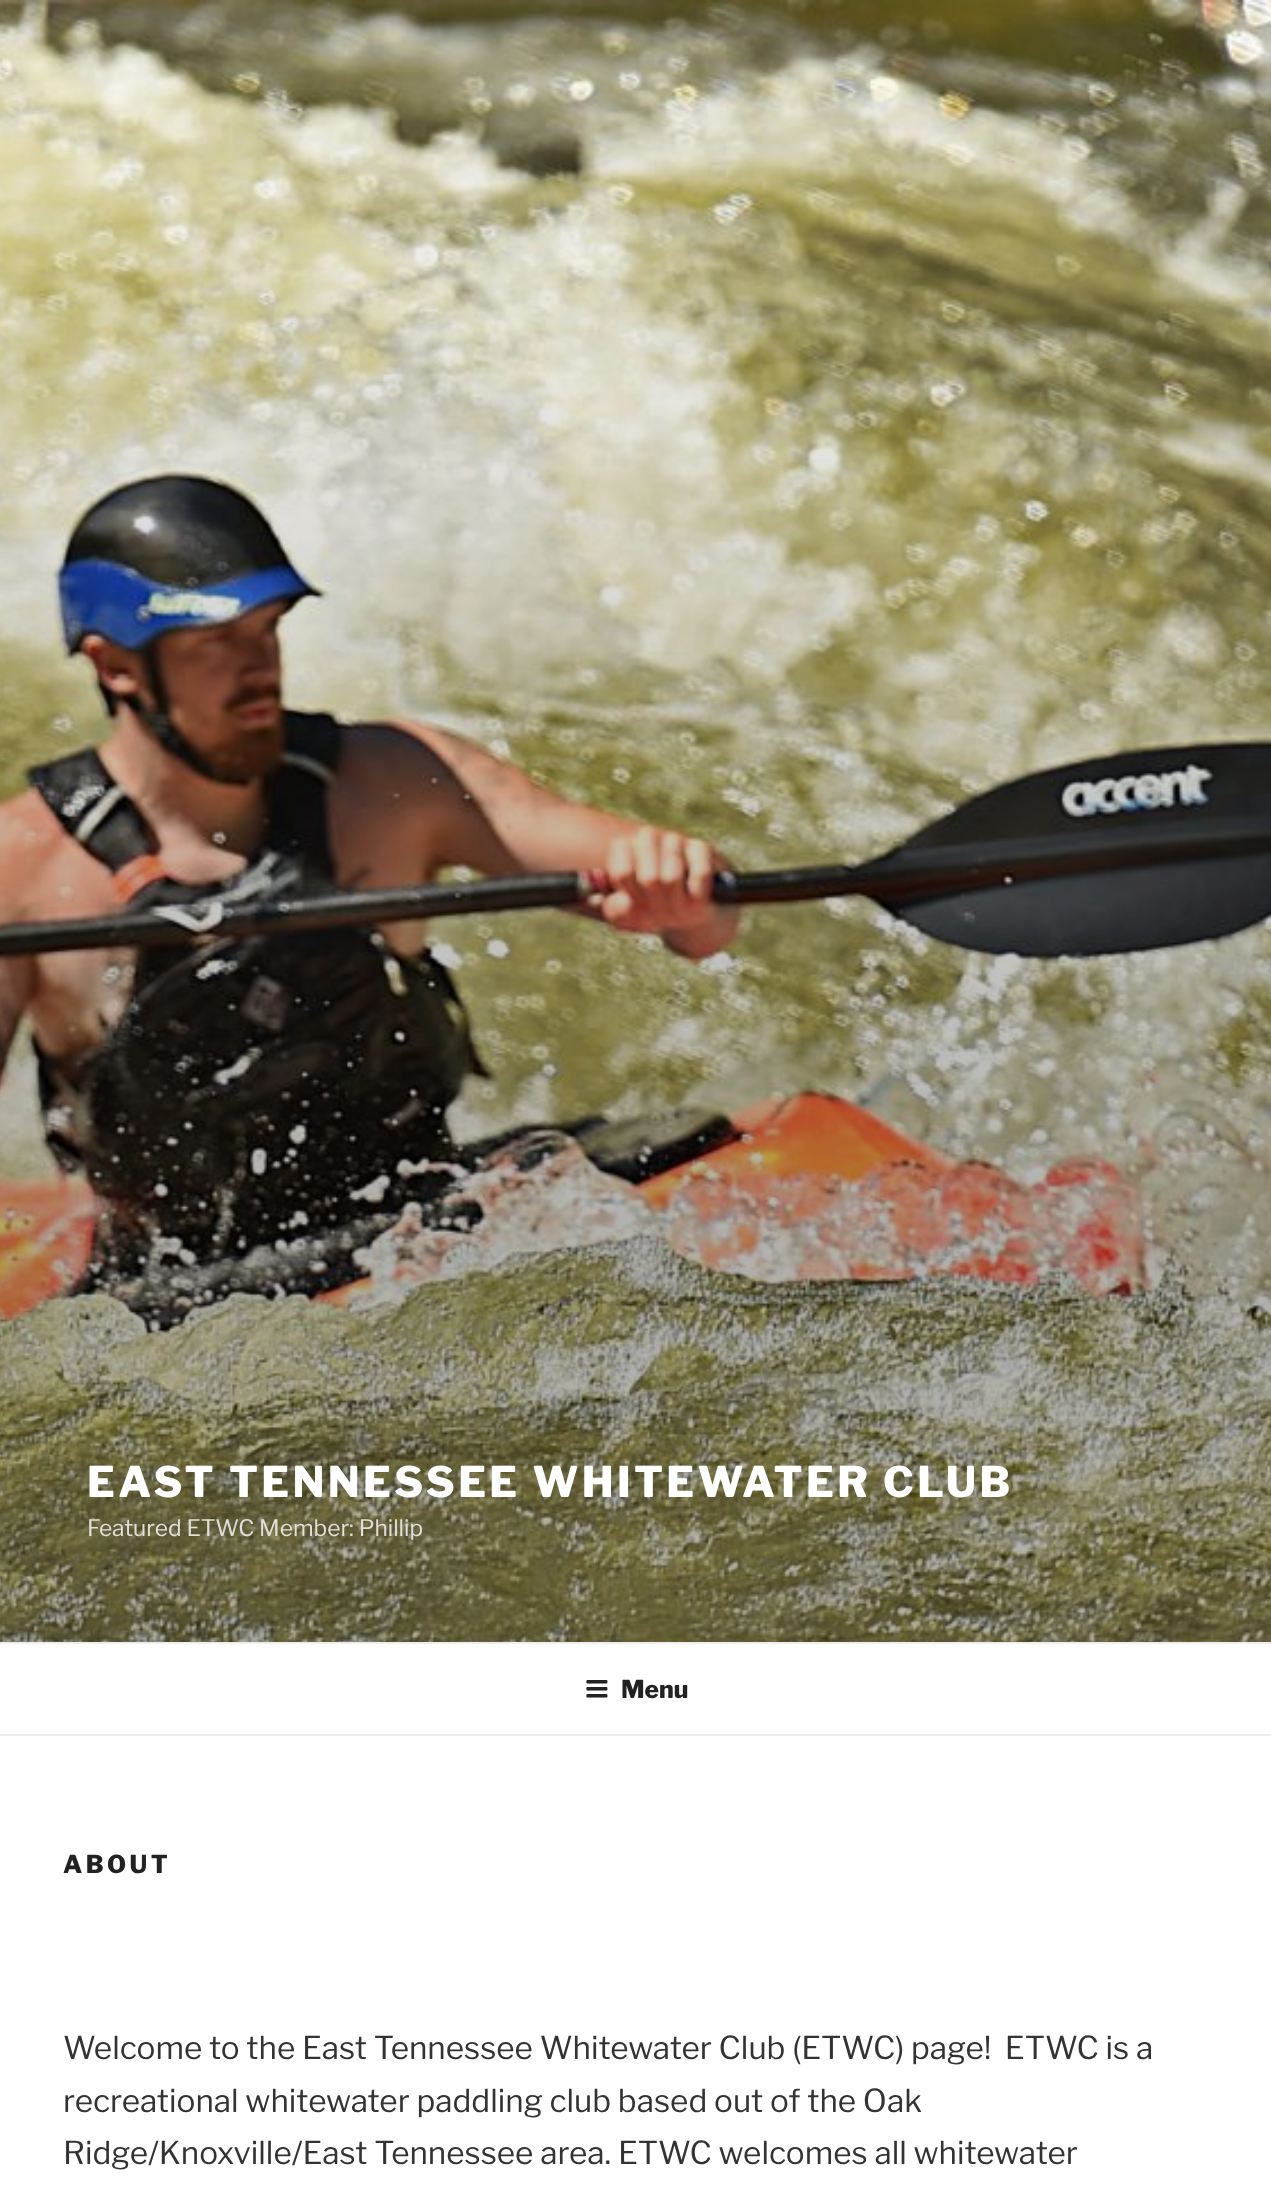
<svg xmlns="http://www.w3.org/2000/svg" width="1271" height="2189" viewBox="0 0 1271 2189">
  <rect width="100%" height="100%" fill="#fff"/>
  <image x="0" y="0" width="1271" height="1642" href="img/1.png"/>
  <path d="M0 1642h1271v2H0z" fill="#eee"/>
  <path d="M0 1734h1271v2H0z" fill="#eee"/>
  <image x="586" y="1680" width="22" height="18" href="img/2.png"/>
  <text x="87" y="1497" font-family="Libre Franklin" font-size="42" font-weight="100" letter-spacing="3.35" fill="#fff">EAST TENNESSEE WHITEWATER CLUB</text>
  <text x="87" y="1536" font-family="'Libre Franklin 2'" font-size="22.75" font-weight="100" fill="#e0dfd8">Featured ETWC Member: Phillip</text>
  <text x="621" y="1698" font-family="Libre Franklin" font-size="24.5" font-weight="100" fill="#222">Menu</text>
  <text x="63" y="1873" font-family="Libre Franklin" font-size="24.5" font-weight="100" letter-spacing="3.5" fill="#222">ABOUT</text>
  <g font-family="'Libre Franklin 2'" font-size="31.5" font-weight="100" fill="#333">
    <text x="63" y="2059" xml:space="preserve">Welcome to the East Tennessee Whitewater Club (ETWC) page!  ETWC is a</text>
    <text x="63" y="2112">recreational whitewater paddling club based out of the Oak</text>
    <text x="63" y="2164">Ridge/Knoxville/East Tennessee area. ETWC welcomes all whitewater</text>
  </g>
</svg>
